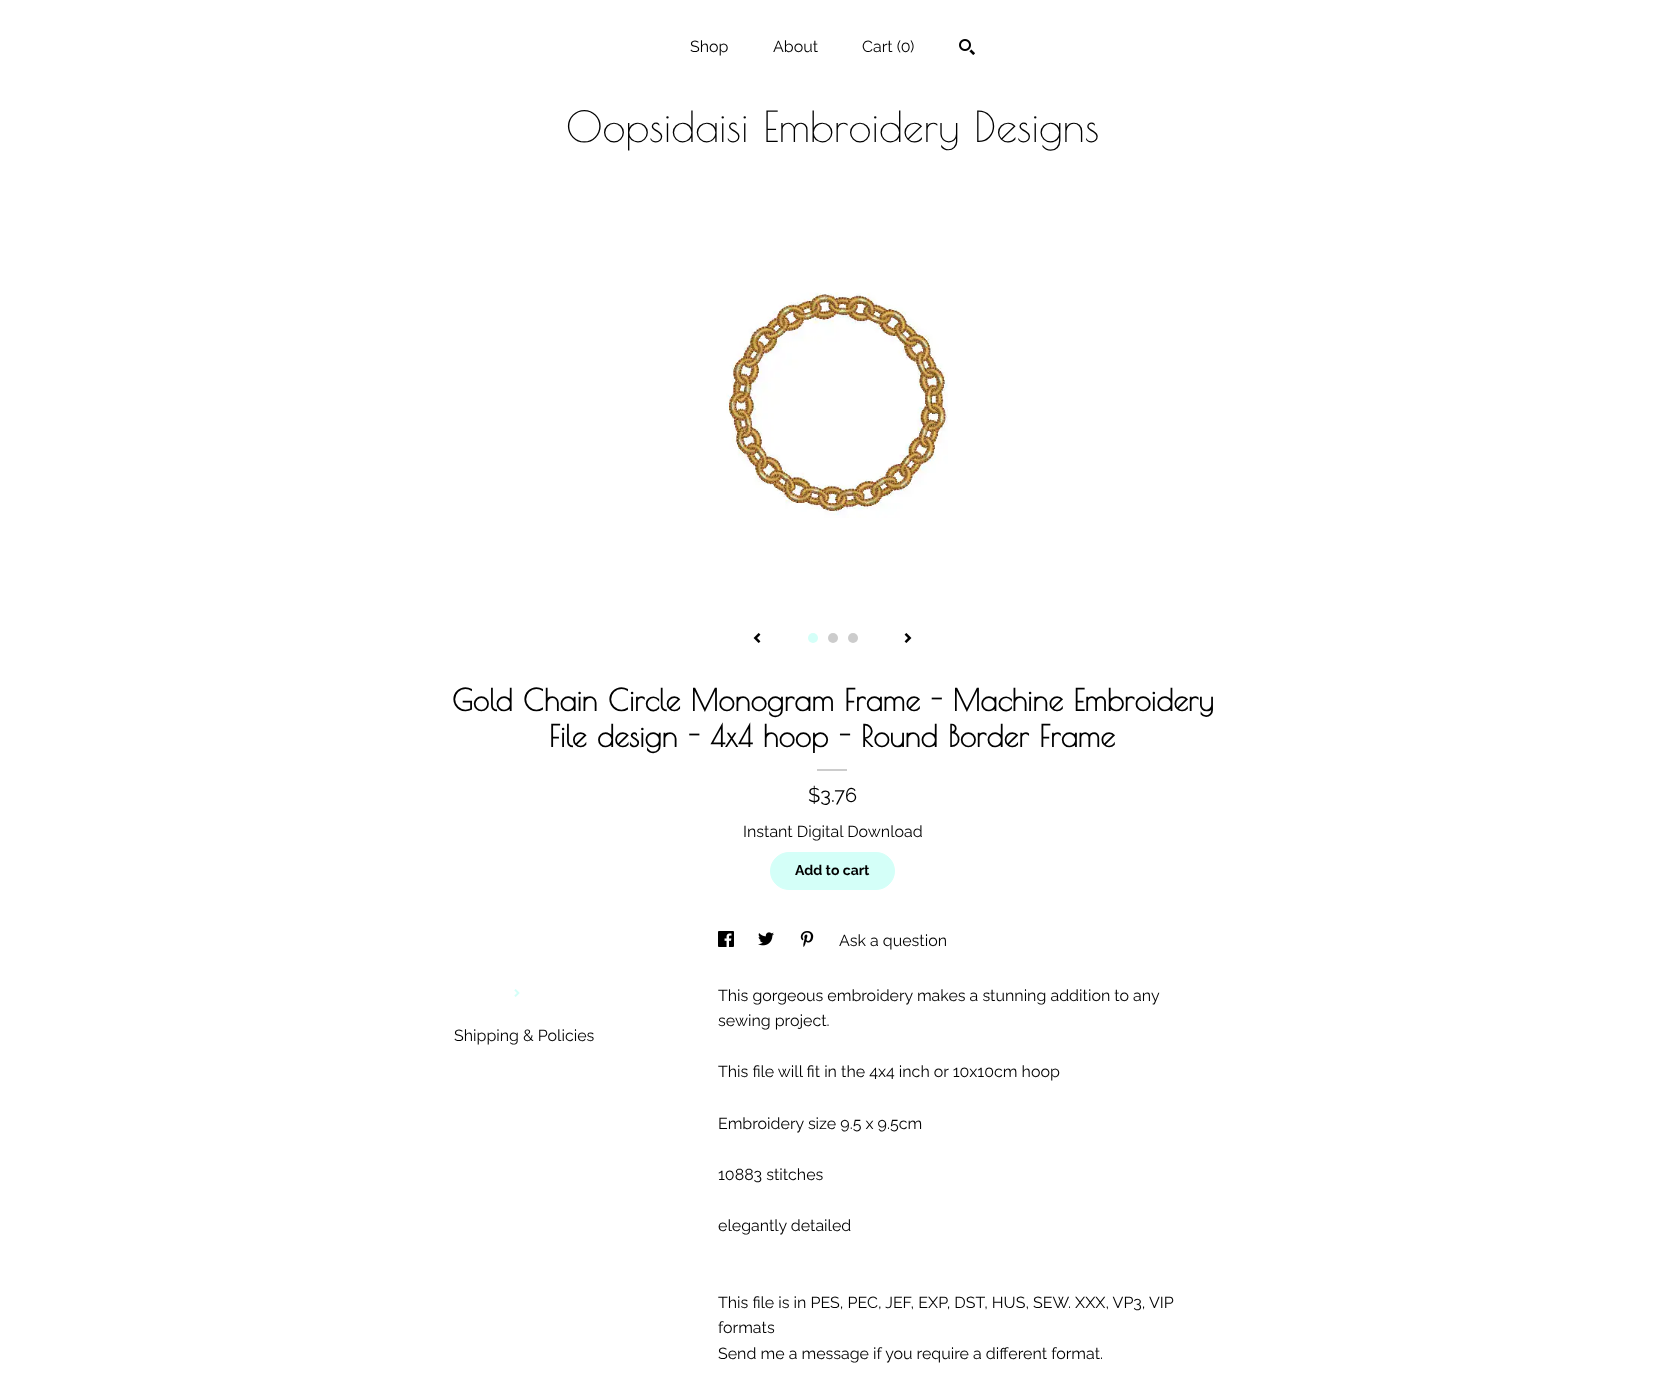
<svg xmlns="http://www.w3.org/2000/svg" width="1665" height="1398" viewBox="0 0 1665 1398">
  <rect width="100%" height="100%" fill="#fff"/>
  <image x="959" y="39" width="16" height="16" href="img/1.png"/>
  <image x="726" y="292" width="222" height="226" href="img/2.png"/>
  <image x="753" y="633" width="8" height="10" href="img/3.png"/>
  <circle cx="813" cy="638" r="5" fill="#d4fff8"/>
  <circle cx="833" cy="638" r="5" fill="#ccc"/>
  <circle cx="853" cy="638" r="5" fill="#ccc"/>
  <image x="904" y="633" width="8" height="10" href="img/4.png"/>
  <path d="M817 769h30v2H817z" fill="#ccc"/>
  <rect x="770.5" y="852.5" width="124" height="37" rx="18.5" fill="#d4fff8" stroke="#d4fff8"/>
  <image x="718" y="931" width="16" height="16" href="img/5.png"/>
  <image x="758" y="932" width="16" height="14" href="img/6.png"/>
  <image x="800" y="931" width="14" height="16" href="img/7.png"/>
  <image x="514" y="989" width="6" height="8" href="img/8.png"/>
  <g font-family="Raleway" font-size="16" fill="#000">
    <text x="690" y="52">Shop</text>
    <text x="773" y="52">About</text>
    <text x="862" y="52">Cart (0</text>
    <text x="910" y="52">)</text>
  </g>
  <text x="566" y="142" font-family="Poiret One" font-size="42" fill="#000">Oopsidaisi Embroidery Designs</text>
  <g font-family="Poiret One" font-size="30" font-weight="bold" fill="#000">
    <text x="452" y="711">Gold Chain Circle Monogram Frame - Machine Embroidery</text>
    <text x="549" y="747">File design - 4x4 hoop - Round Border Frame</text>
  </g>
  <text x="808" y="802" font-family="Raleway" font-size="20" fill="#000">$3.76</text>
  <text x="743" y="837" font-family="Raleway" font-size="16" fill="#000">Instant Digital Download</text>
  <text x="795" y="875" font-family="Raleway" font-size="14" font-weight="bold" fill="#000">Add to cart</text>
  <g font-family="Raleway" font-size="16" fill="#000">
    <text x="839" y="946">Ask a question</text>
    <text x="454" y="1041">Shipping &amp; Policies</text>
    <text x="718" y="1001">This gorgeous embroidery makes a stunning addition to any</text>
    <text x="718" y="1026">sewing project.</text>
    <text x="718" y="1077">This file will fit in the 4x4 inch or 10x10cm hoop</text>
    <text x="718" y="1129">Embroidery size 9.5 x 9.5cm</text>
    <text x="718" y="1180">10883 stitches</text>
    <text x="718" y="1231">elegantly detailed</text>
    <text x="718" y="1308">This file is in PES, PEC, JEF, EXP, DST, HUS, SEW. XXX, VP3, VIP</text>
    <text x="718" y="1333">formats</text>
    <text x="718" y="1359">Send me a message if you require a different format.</text>
  </g>
</svg>
